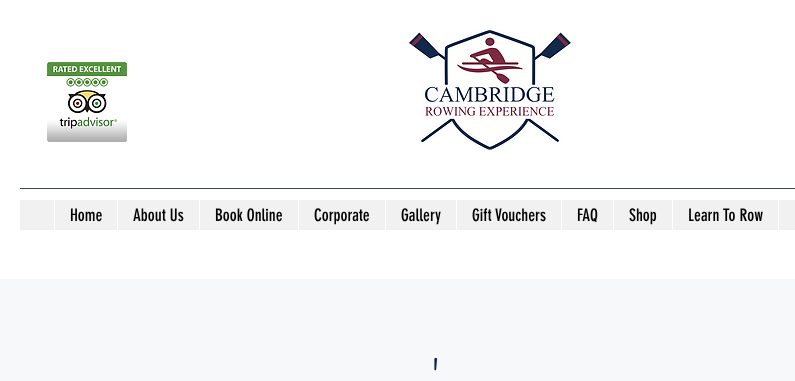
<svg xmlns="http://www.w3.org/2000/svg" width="795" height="381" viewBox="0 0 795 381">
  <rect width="100%" height="100%" fill="#fff"/>
  <image x="47" y="62" width="80" height="80" href="img/1.png"/>
  <image x="409" y="30" width="162" height="120" href="img/2.png"/>
  <path d="M20 188h775v1H20z" fill="#364a65"/>
  <path d="M20 200h775v30H20z" fill="#f1f1f1"/>
  <path d="M54 200h1v30H54z" fill="#fff"/>
  <path d="M117 200h1v30H117z" fill="#fff"/>
  <path d="M199 200h1v30H199z" fill="#fff"/>
  <path d="M298 200h1v30H298z" fill="#fff"/>
  <path d="M385 200h1v30H385z" fill="#fff"/>
  <path d="M456 200h1v30H456z" fill="#fff"/>
  <path d="M561 200h1v30H561z" fill="#fff"/>
  <path d="M613 200h1v30H613z" fill="#fff"/>
  <path d="M672 200h1v30H672z" fill="#fff"/>
  <path d="M778 200h1v30H778z" fill="#fff"/>
  <path d="M0 279h795v102H0z" fill="#f7f8f9"/>
  <g font-family="'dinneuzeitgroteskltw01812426'" font-size="17" fill="#000">
    <text x="70" y="221">Home</text>
    <text x="133" y="221">About Us</text>
    <text x="215" y="221">Book Online</text>
    <text x="314" y="221">Corporate</text>
    <text x="401" y="221">Gallery</text>
    <text x="472" y="221">Gift Vouchers</text>
    <text x="577" y="221">FAQ</text>
    <text x="629" y="221">Shop</text>
    <text x="688" y="221">Learn To Row</text>
  </g>
  <text x="431" y="400" font-family="'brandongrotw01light'" font-size="60" font-weight="300" fill="#122a4a">'</text>
</svg>
